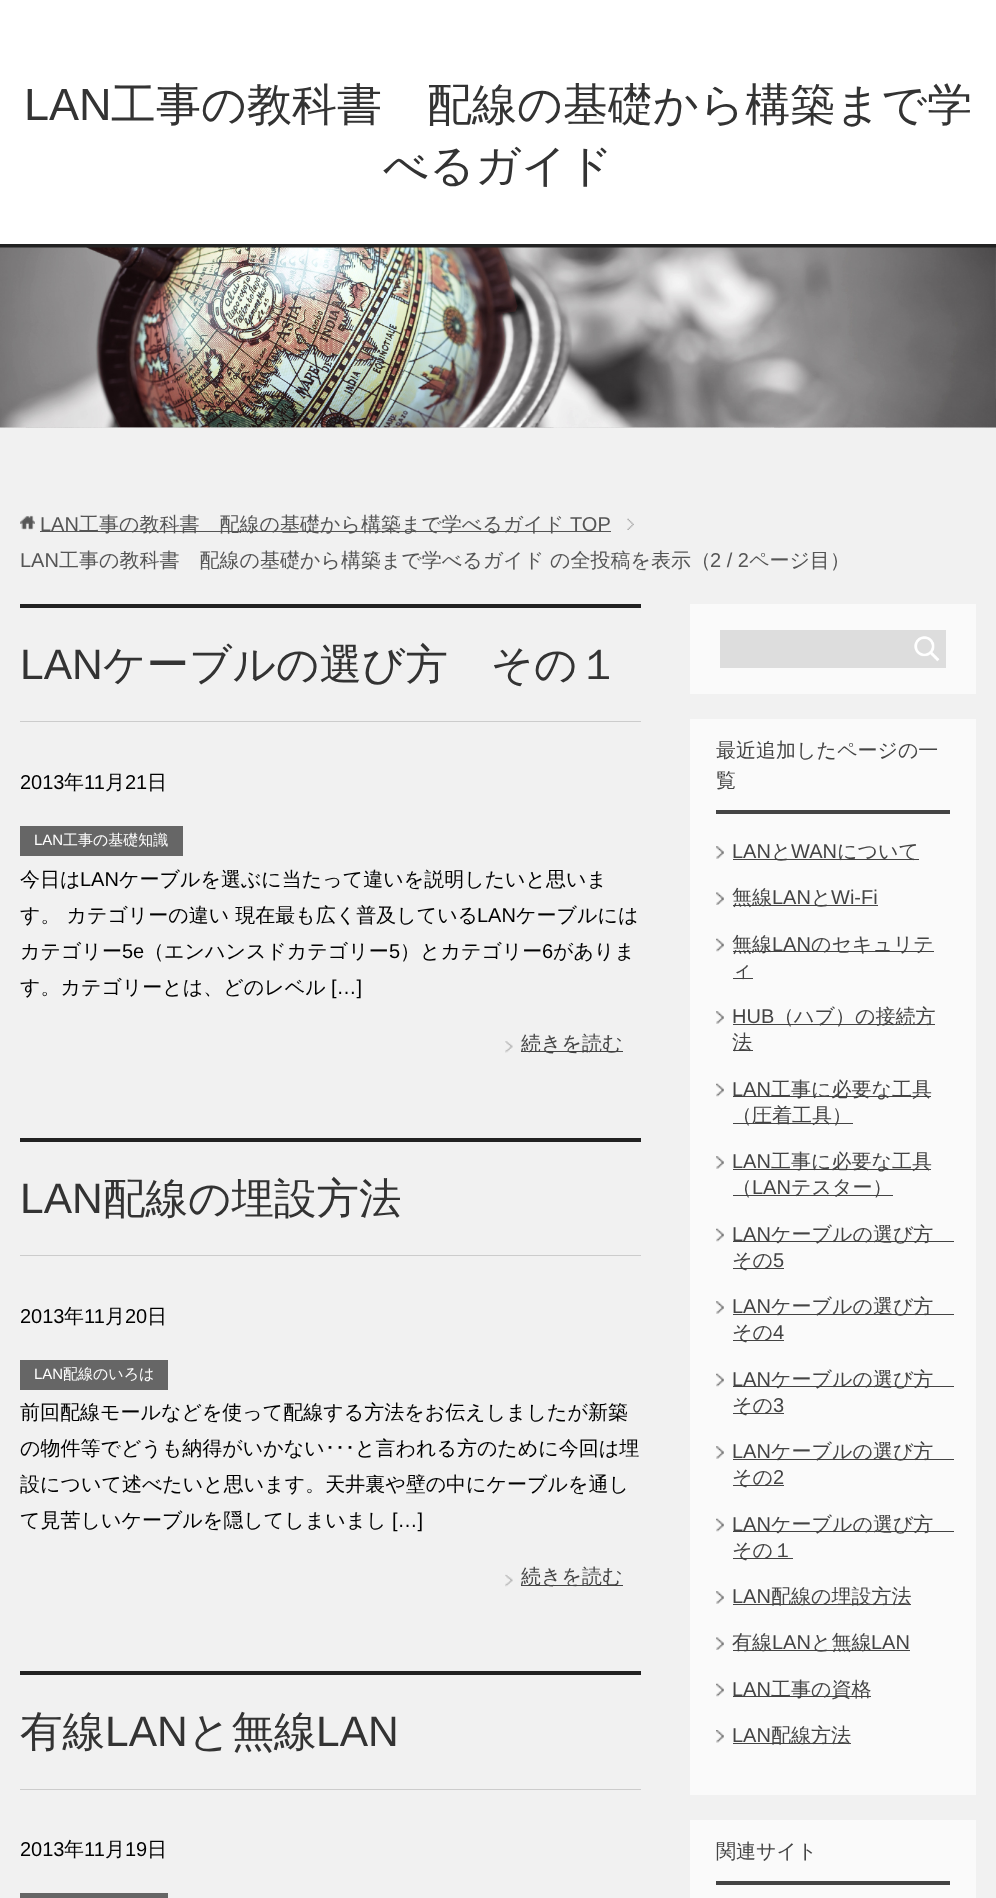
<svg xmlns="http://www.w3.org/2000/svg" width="996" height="1898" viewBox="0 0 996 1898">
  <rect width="100%" height="100%" fill="#f1f1f1"/>
  <path d="M0 0h996v244H0z" fill="#fff"/>
  <path d="M0 244h996v4H0z" fill="#222"/>
  <image x="0" y="247" width="996" height="181" href="img/1.png"/>
  <image x="627" y="518" width="7" height="12" href="img/2.png"/>
  <image x="20" y="515" width="15" height="15" href="img/3.png"/>
  <path d="M40 531h571v1H40z" fill="#555"/>
  <path d="M20 604h621v4H20z" fill="#222"/>
  <path d="M20 721h621v1H20z" fill="#ccc"/>
  <path d="M20 826h163v30H20z" fill="#666"/>
  <image x="505" y="1041" width="8" height="12" href="img/4.png"/>
  <path d="M521 1051h102v1H521z" fill="#444"/>
  <path d="M20 1138h621v4H20z" fill="#222"/>
  <path d="M20 1255h621v1H20z" fill="#ccc"/>
  <path d="M20 1360h148v30H20z" fill="#666"/>
  <image x="505" y="1574" width="8" height="13" href="img/5.png"/>
  <path d="M521 1585h102v1H521z" fill="#444"/>
  <path d="M20 1671h621v4H20z" fill="#222"/>
  <path d="M20 1789h621v1H20z" fill="#ccc"/>
  <path d="M20 1893h148v5H20z" fill="#666"/>
  <path d="M690 604h286v90H690z" fill="#fafafa"/>
  <path d="M720 630h226v38H720z" fill="#ddd"/>
  <image x="914" y="636" width="26" height="26" href="img/6.png"/>
  <path d="M690 719h286v1076H690z" fill="#fafafa"/>
  <path d="M716 810h234v4H716z" fill="#444"/>
  <image x="716" y="846" width="8" height="13" href="img/7.png"/>
  <path d="M733 859h186v1H733z" fill="#444"/>
  <image x="716" y="892" width="8" height="13" href="img/8.png"/>
  <path d="M733 905h145v1H733z" fill="#444"/>
  <image x="716" y="938" width="8" height="14" href="img/9.png"/>
  <path d="M733 951h201v1H733z" fill="#444"/>
  <path d="M733 978h20v1H733z" fill="#444"/>
  <image x="716" y="1011" width="8" height="13" href="img/7.png"/>
  <path d="M733 1024h202v1H733z" fill="#444"/>
  <path d="M733 1050h20v1H733z" fill="#444"/>
  <image x="716" y="1083" width="8" height="14" href="img/9.png"/>
  <path d="M733 1096h198v1H733z" fill="#444"/>
  <path d="M733 1123h120v1H733z" fill="#444"/>
  <image x="716" y="1156" width="8" height="13" href="img/7.png"/>
  <path d="M733 1169h198v1H733z" fill="#444"/>
  <path d="M733 1195h160v1H733z" fill="#444"/>
  <image x="716" y="1228" width="8" height="14" href="img/9.png"/>
  <path d="M733 1241h221v1H733z" fill="#444"/>
  <path d="M733 1268h51v1H733z" fill="#444"/>
  <image x="716" y="1301" width="8" height="13" href="img/7.png"/>
  <path d="M733 1314h221v1H733z" fill="#444"/>
  <path d="M733 1340h51v1H733z" fill="#444"/>
  <image x="716" y="1373" width="8" height="14" href="img/9.png"/>
  <path d="M733 1386h221v1H733z" fill="#444"/>
  <path d="M733 1413h51v1H733z" fill="#444"/>
  <image x="716" y="1446" width="8" height="13" href="img/7.png"/>
  <path d="M733 1459h221v1H733z" fill="#444"/>
  <path d="M733 1485h51v1H733z" fill="#444"/>
  <image x="716" y="1518" width="8" height="14" href="img/9.png"/>
  <path d="M733 1531h221v1H733z" fill="#444"/>
  <path d="M733 1558h60v1H733z" fill="#444"/>
  <image x="716" y="1591" width="8" height="13" href="img/7.png"/>
  <path d="M733 1604h178v1H733z" fill="#444"/>
  <image x="716" y="1637" width="8" height="13" href="img/8.png"/>
  <path d="M733 1650h177v1H733z" fill="#444"/>
  <image x="716" y="1683" width="8" height="14" href="img/9.png"/>
  <path d="M733 1696h138v1H733z" fill="#444"/>
  <image x="716" y="1730" width="8" height="13" href="img/10.png"/>
  <path d="M733 1743h118v1H733z" fill="#444"/>
  <path d="M690 1820h286v78H690z" fill="#fafafa"/>
  <path d="M716 1881h234v4H716z" fill="#444"/>
  <text x="24" y="120" font-family="Liberation Sans" font-size="45" fill="#333">LAN</text>
  <g font-family="WenQuanYi Zen Hei" font-size="45" font-weight="500" fill="#333">
    <text x="111" y="120">工事の教科書　配線の基礎から構築まで学</text>
    <text x="383" y="181">べるガイド</text>
  </g>
  <text x="40" y="531" font-family="Liberation Sans" font-size="20" fill="#555">LAN</text>
  <text x="79" y="531" font-family="WenQuanYi Zen Hei" font-size="20" font-weight="500" fill="#555">工事の教科書　配線の基礎から構築まで学べるガイド</text>
  <g font-family="Liberation Sans" font-size="20" fill="#555">
    <text x="570" y="531">TOP</text>
    <text x="20" y="567">LAN</text>
  </g>
  <g font-family="WenQuanYi Zen Hei" font-size="20" font-weight="500" fill="#555">
    <text x="59" y="567">工事の教科書　配線の基礎から構築まで学べるガイド</text>
    <text x="550" y="567">の全投稿を表示（</text>
  </g>
  <text x="710" y="567" font-family="Liberation Sans" font-size="20" fill="#555">2 / 2</text>
  <text x="749" y="567" font-family="WenQuanYi Zen Hei" font-size="20" font-weight="500" fill="#555">ページ目）</text>
  <text x="20" y="679" font-family="Liberation Sans" font-size="42.5" fill="#333">LAN</text>
  <text x="103" y="679" font-family="WenQuanYi Zen Hei" font-size="42.5" font-weight="500" fill="#333">ケーブルの選び方　その１</text>
  <text x="20" y="789" font-family="Liberation Sans" font-size="20" fill="#000">2013</text>
  <text x="64" y="789" font-family="WenQuanYi Zen Hei" font-size="20" font-weight="500" fill="#000">年</text>
  <text x="84" y="789" font-family="Liberation Sans" font-size="20" fill="#000">11</text>
  <text x="105" y="789" font-family="WenQuanYi Zen Hei" font-size="20" font-weight="500" fill="#000">月</text>
  <text x="125" y="789" font-family="Liberation Sans" font-size="20" fill="#000">21</text>
  <text x="147" y="789" font-family="WenQuanYi Zen Hei" font-size="20" font-weight="500" fill="#000">日</text>
  <text x="34" y="845" font-family="Liberation Sans" font-size="15" fill="#fff">LAN</text>
  <text x="63" y="845" font-family="WenQuanYi Zen Hei" font-size="15" font-weight="500" fill="#fff">工事の基礎知識</text>
  <text x="20" y="886" font-family="WenQuanYi Zen Hei" font-size="20" font-weight="500" fill="#000">今日は</text>
  <text x="80" y="886" font-family="Liberation Sans" font-size="20" fill="#000">LAN</text>
  <g font-family="WenQuanYi Zen Hei" font-size="20" font-weight="500" fill="#000">
    <text x="119" y="886">ケーブルを選ぶに当たって違いを説明したいと思いま</text>
    <text x="20" y="922">す。 カテゴリーの違い 現在最も広く普及している</text>
  </g>
  <text x="477" y="922" font-family="Liberation Sans" font-size="20" fill="#000">LAN</text>
  <g font-family="WenQuanYi Zen Hei" font-size="20" font-weight="500" fill="#000">
    <text x="516" y="922">ケーブルには</text>
    <text x="20" y="958">カテゴリー</text>
  </g>
  <text x="122" y="958" font-family="Liberation Sans" font-size="20" fill="#000">5e</text>
  <text x="144" y="958" font-family="WenQuanYi Zen Hei" font-size="20" font-weight="500" fill="#000">（エンハンスドカテゴリー</text>
  <text x="389" y="958" font-family="Liberation Sans" font-size="20" fill="#000">5</text>
  <text x="400" y="958" font-family="WenQuanYi Zen Hei" font-size="20" font-weight="500" fill="#000">）とカテゴリー</text>
  <text x="542" y="958" font-family="Liberation Sans" font-size="20" fill="#000">6</text>
  <g font-family="WenQuanYi Zen Hei" font-size="20" font-weight="500" fill="#000">
    <text x="553" y="958">がありま</text>
    <text x="20" y="994">す。カテゴリーとは、どのレベル</text>
  </g>
  <text x="331" y="994" font-family="Liberation Sans" font-size="20" fill="#000">[…]</text>
  <text x="521" y="1050" font-family="WenQuanYi Zen Hei" font-size="20" font-weight="500" fill="#444">続きを読む</text>
  <text x="20" y="1213" font-family="Liberation Sans" font-size="42.5" fill="#333">LAN</text>
  <text x="103" y="1213" font-family="WenQuanYi Zen Hei" font-size="42.5" font-weight="500" fill="#333">配線の埋設方法</text>
  <text x="20" y="1323" font-family="Liberation Sans" font-size="20" fill="#000">2013</text>
  <text x="64" y="1323" font-family="WenQuanYi Zen Hei" font-size="20" font-weight="500" fill="#000">年</text>
  <text x="84" y="1323" font-family="Liberation Sans" font-size="20" fill="#000">11</text>
  <text x="105" y="1323" font-family="WenQuanYi Zen Hei" font-size="20" font-weight="500" fill="#000">月</text>
  <text x="125" y="1323" font-family="Liberation Sans" font-size="20" fill="#000">20</text>
  <text x="147" y="1323" font-family="WenQuanYi Zen Hei" font-size="20" font-weight="500" fill="#000">日</text>
  <text x="34" y="1379" font-family="Liberation Sans" font-size="15" fill="#fff">LAN</text>
  <text x="63" y="1379" font-family="WenQuanYi Zen Hei" font-size="15" font-weight="500" fill="#fff">配線のいろは</text>
  <g font-family="WenQuanYi Zen Hei" font-size="20" font-weight="500" fill="#000">
    <text x="20" y="1419">前回配線モールなどを使って配線する方法をお伝えしましたが新築</text>
    <text x="20" y="1455">の物件等でどうも納得がいかない</text>
  </g>
  <text x="325" y="1455" font-family="IPAPGothic" font-size="20" fill="#000">･･･</text>
  <g font-family="WenQuanYi Zen Hei" font-size="20" font-weight="500" fill="#000">
    <text x="355" y="1455">と言われる方のために今回は埋</text>
    <text x="20" y="1491">設について述べたいと思います。天井裏や壁の中にケーブルを通し</text>
    <text x="20" y="1527">て見苦しいケーブルを隠してしまいまし</text>
  </g>
  <text x="392" y="1527" font-family="Liberation Sans" font-size="20" fill="#000">[…]</text>
  <text x="521" y="1583" font-family="WenQuanYi Zen Hei" font-size="20" font-weight="500" fill="#444">続きを読む</text>
  <text x="20" y="1746" font-family="WenQuanYi Zen Hei" font-size="42.5" font-weight="500" fill="#333">有線</text>
  <text x="105" y="1746" font-family="Liberation Sans" font-size="42.5" fill="#333">LAN</text>
  <text x="188" y="1746" font-family="WenQuanYi Zen Hei" font-size="42.5" font-weight="500" fill="#333">と無線</text>
  <text x="316" y="1746" font-family="Liberation Sans" font-size="42.5" fill="#333">LAN</text>
  <text x="20" y="1856" font-family="Liberation Sans" font-size="20" fill="#000">2013</text>
  <text x="64" y="1856" font-family="WenQuanYi Zen Hei" font-size="20" font-weight="500" fill="#000">年</text>
  <text x="84" y="1856" font-family="Liberation Sans" font-size="20" fill="#000">11</text>
  <text x="105" y="1856" font-family="WenQuanYi Zen Hei" font-size="20" font-weight="500" fill="#000">月</text>
  <text x="125" y="1856" font-family="Liberation Sans" font-size="20" fill="#000">19</text>
  <text x="147" y="1856" font-family="WenQuanYi Zen Hei" font-size="20" font-weight="500" fill="#000">日</text>
  <g font-family="WenQuanYi Zen Hei" font-size="20" font-weight="500" fill="#444">
    <text x="716" y="757">最近追加したページの一</text>
    <text x="716" y="787">覧</text>
  </g>
  <text x="732" y="858" font-family="Liberation Sans" font-size="20" fill="#444">LAN</text>
  <text x="771" y="858" font-family="WenQuanYi Zen Hei" font-size="20" font-weight="500" fill="#444">と</text>
  <text x="791" y="858" font-family="Liberation Sans" font-size="20" fill="#444">WAN</text>
  <g font-family="WenQuanYi Zen Hei" font-size="20" font-weight="500" fill="#444">
    <text x="837" y="858">について</text>
    <text x="732" y="904">無線</text>
  </g>
  <text x="772" y="904" font-family="Liberation Sans" font-size="20" fill="#444">LAN</text>
  <text x="811" y="904" font-family="WenQuanYi Zen Hei" font-size="20" font-weight="500" fill="#444">と</text>
  <text x="831" y="904" font-family="Liberation Sans" font-size="20" fill="#444">Wi-Fi</text>
  <text x="732" y="951" font-family="WenQuanYi Zen Hei" font-size="20" font-weight="500" fill="#444">無線</text>
  <text x="772" y="951" font-family="Liberation Sans" font-size="20" fill="#444">LAN</text>
  <g font-family="WenQuanYi Zen Hei" font-size="20" font-weight="500" fill="#444">
    <text x="811" y="951">のセキュリテ</text>
    <text x="732" y="977">ィ</text>
  </g>
  <text x="732" y="1023" font-family="Liberation Sans" font-size="20" fill="#444">HUB</text>
  <g font-family="WenQuanYi Zen Hei" font-size="20" font-weight="500" fill="#444">
    <text x="774" y="1023">（ハブ）の接続方</text>
    <text x="732" y="1049">法</text>
  </g>
  <text x="732" y="1096" font-family="Liberation Sans" font-size="20" fill="#444">LAN</text>
  <g font-family="WenQuanYi Zen Hei" font-size="20" font-weight="500" fill="#444">
    <text x="771" y="1096">工事に必要な工具</text>
    <text x="732" y="1122">（圧着工具）</text>
  </g>
  <text x="732" y="1168" font-family="Liberation Sans" font-size="20" fill="#444">LAN</text>
  <g font-family="WenQuanYi Zen Hei" font-size="20" font-weight="500" fill="#444">
    <text x="771" y="1168">工事に必要な工具</text>
    <text x="732" y="1194">（</text>
  </g>
  <text x="752" y="1194" font-family="Liberation Sans" font-size="20" fill="#444">LAN</text>
  <text x="791" y="1194" font-family="WenQuanYi Zen Hei" font-size="20" font-weight="500" fill="#444">テスター）</text>
  <text x="732" y="1241" font-family="Liberation Sans" font-size="20" fill="#444">LAN</text>
  <g font-family="WenQuanYi Zen Hei" font-size="20" font-weight="500" fill="#444">
    <text x="771" y="1241">ケーブルの選び方</text>
    <text x="732" y="1267">その</text>
  </g>
  <g font-family="Liberation Sans" font-size="20" fill="#444">
    <text x="773" y="1267">5</text>
    <text x="732" y="1313">LAN</text>
  </g>
  <g font-family="WenQuanYi Zen Hei" font-size="20" font-weight="500" fill="#444">
    <text x="771" y="1313">ケーブルの選び方</text>
    <text x="732" y="1339">その</text>
  </g>
  <g font-family="Liberation Sans" font-size="20" fill="#444">
    <text x="773" y="1339">4</text>
    <text x="732" y="1386">LAN</text>
  </g>
  <g font-family="WenQuanYi Zen Hei" font-size="20" font-weight="500" fill="#444">
    <text x="771" y="1386">ケーブルの選び方</text>
    <text x="732" y="1412">その</text>
  </g>
  <g font-family="Liberation Sans" font-size="20" fill="#444">
    <text x="773" y="1412">3</text>
    <text x="732" y="1458">LAN</text>
  </g>
  <g font-family="WenQuanYi Zen Hei" font-size="20" font-weight="500" fill="#444">
    <text x="771" y="1458">ケーブルの選び方</text>
    <text x="732" y="1484">その</text>
  </g>
  <g font-family="Liberation Sans" font-size="20" fill="#444">
    <text x="773" y="1484">2</text>
    <text x="732" y="1531">LAN</text>
  </g>
  <g font-family="WenQuanYi Zen Hei" font-size="20" font-weight="500" fill="#444">
    <text x="771" y="1531">ケーブルの選び方</text>
    <text x="732" y="1557">その１</text>
  </g>
  <text x="732" y="1603" font-family="Liberation Sans" font-size="20" fill="#444">LAN</text>
  <g font-family="WenQuanYi Zen Hei" font-size="20" font-weight="500" fill="#444">
    <text x="771" y="1603">配線の埋設方法</text>
    <text x="732" y="1649">有線</text>
  </g>
  <text x="772" y="1649" font-family="Liberation Sans" font-size="20" fill="#444">LAN</text>
  <text x="811" y="1649" font-family="WenQuanYi Zen Hei" font-size="20" font-weight="500" fill="#444">と無線</text>
  <g font-family="Liberation Sans" font-size="20" fill="#444">
    <text x="871" y="1649">LAN</text>
    <text x="732" y="1696">LAN</text>
  </g>
  <text x="771" y="1696" font-family="WenQuanYi Zen Hei" font-size="20" font-weight="500" fill="#444">工事の資格</text>
  <text x="732" y="1742" font-family="Liberation Sans" font-size="20" fill="#444">LAN</text>
  <g font-family="WenQuanYi Zen Hei" font-size="20" font-weight="500" fill="#444">
    <text x="771" y="1742">配線方法</text>
    <text x="716" y="1858">関連サイト</text>
  </g>
</svg>
